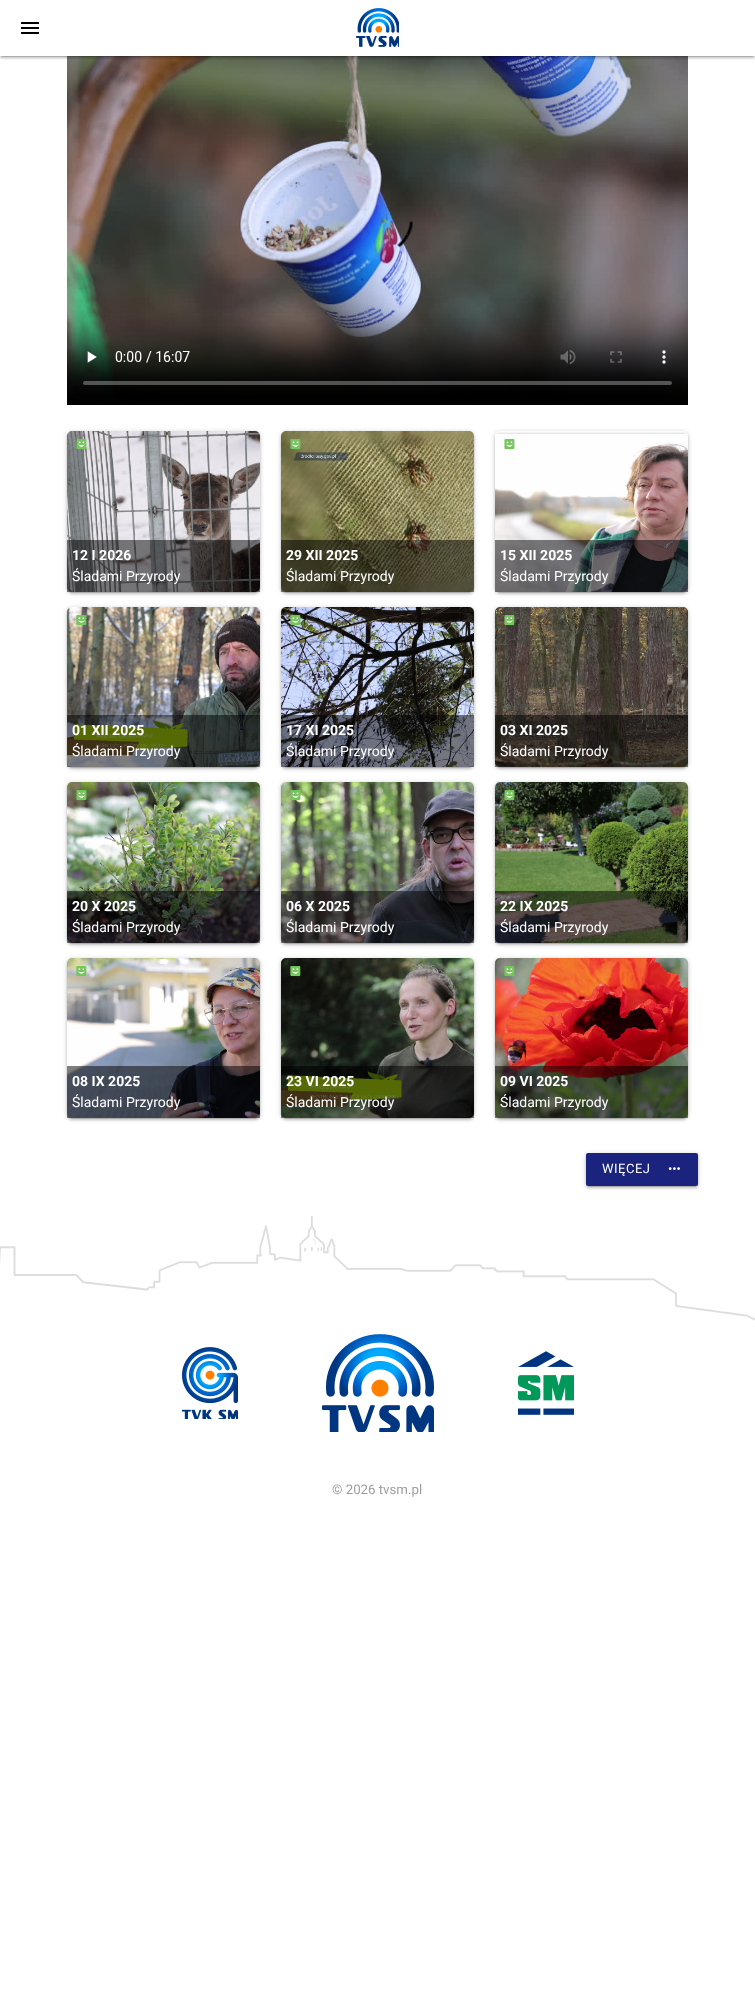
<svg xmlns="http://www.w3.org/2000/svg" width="755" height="2010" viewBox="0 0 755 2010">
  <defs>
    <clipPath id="clip1"><path d="M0 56h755v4H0z"/></clipPath>
    <clipPath id="clip2"><path d="M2 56h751v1H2z"/></clipPath>
    <clipPath id="clip3"><path d="M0 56h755v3H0z"/></clipPath>
    <clipPath id="clip4"><path d="M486 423H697V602H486ZM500 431H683C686 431 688 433 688 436V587C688 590 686 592 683 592H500C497 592 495 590 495 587V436C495 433 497 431 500 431Z" clip-rule="evenodd"/></clipPath>
  </defs>
  <rect width="100%" height="100%" fill="#fff"/>
  <image x="67" y="56" width="621" height="349" href="img/3.png"/>
  <g clip-path="url(#clip1)">
    <path d="M0 1h755v56H0z" fill="#00000033" filter="blur(2.5px)"/>
  </g>
  <g clip-path="url(#clip2)">
    <path d="M2 5h751v52H2z" fill="#0000001f" filter="blur(0.5px)"/>
  </g>
  <g clip-path="url(#clip3)">
    <path d="M0 2h755v56H0z" fill="#00000024" filter="blur(1px)"/>
  </g>
  <image x="21" y="22" width="18" height="12" href="img/1.png"/>
  <image x="356" y="8" width="43" height="39" href="img/2.png"/>
  <rect x="67" y="432" width="193" height="161" rx="5" fill="#00000033" filter="blur(2.5px)"/>
  <rect x="69" y="436" width="189" height="157" rx="3" fill="#0000001f" filter="blur(0.5px)"/>
  <rect x="67" y="433" width="193" height="161" rx="5" fill="#00000024" filter="blur(1px)"/>
  <image x="67" y="431" width="193" height="161" href="img/4.png"/>
  <path d="M67 540h193v52H67z" fill="#00000080"/>
  <rect x="281" y="432" width="193" height="161" rx="5" fill="#00000033" filter="blur(2.5px)"/>
  <rect x="283" y="436" width="189" height="157" rx="3" fill="#0000001f" filter="blur(0.5px)"/>
  <rect x="281" y="433" width="193" height="161" rx="5" fill="#00000024" filter="blur(1px)"/>
  <image x="281" y="431" width="193" height="161" href="img/5.png"/>
  <path d="M281 540h193v52H281z" fill="#00000080"/>
  <g clip-path="url(#clip4)">
    <rect x="495" y="432" width="193" height="161" rx="5" fill="#00000033" filter="blur(2.5px)"/>
  </g>
  <rect x="497" y="436" width="189" height="157" rx="3" fill="#0000001f" filter="blur(0.5px)"/>
  <rect x="495" y="433" width="193" height="161" rx="5" fill="#00000024" filter="blur(1px)"/>
  <image x="495" y="434" width="193" height="158" href="img/6.png"/>
  <path d="M495 540h193v52H495z" fill="#00000080"/>
  <rect x="67" y="608" width="193" height="160" rx="5" fill="#00000033" filter="blur(2.5px)"/>
  <rect x="69" y="612" width="189" height="156" rx="3" fill="#0000001f" filter="blur(0.5px)"/>
  <rect x="67" y="609" width="193" height="160" rx="5" fill="#00000024" filter="blur(1px)"/>
  <image x="67" y="607" width="193" height="160" href="img/7.png"/>
  <path d="M67 715h193v52H67z" fill="#00000080"/>
  <rect x="281" y="608" width="193" height="160" rx="5" fill="#00000033" filter="blur(2.5px)"/>
  <rect x="283" y="612" width="189" height="156" rx="3" fill="#0000001f" filter="blur(0.5px)"/>
  <rect x="281" y="609" width="193" height="160" rx="5" fill="#00000024" filter="blur(1px)"/>
  <image x="281" y="607" width="193" height="160" href="img/8.png"/>
  <path d="M281 715h193v52H281z" fill="#00000080"/>
  <rect x="495" y="608" width="193" height="160" rx="5" fill="#00000033" filter="blur(2.5px)"/>
  <rect x="497" y="612" width="189" height="156" rx="3" fill="#0000001f" filter="blur(0.5px)"/>
  <rect x="495" y="609" width="193" height="160" rx="5" fill="#00000024" filter="blur(1px)"/>
  <image x="495" y="607" width="193" height="160" href="img/9.png"/>
  <path d="M495 715h193v52H495z" fill="#00000080"/>
  <rect x="67" y="783" width="193" height="161" rx="5" fill="#00000033" filter="blur(2.5px)"/>
  <rect x="69" y="787" width="189" height="157" rx="3" fill="#0000001f" filter="blur(0.5px)"/>
  <rect x="67" y="784" width="193" height="161" rx="5" fill="#00000024" filter="blur(1px)"/>
  <image x="67" y="782" width="193" height="161" href="img/10.png"/>
  <path d="M67 891h193v52H67z" fill="#00000080"/>
  <rect x="281" y="783" width="193" height="161" rx="5" fill="#00000033" filter="blur(2.5px)"/>
  <rect x="283" y="787" width="189" height="157" rx="3" fill="#0000001f" filter="blur(0.5px)"/>
  <rect x="281" y="784" width="193" height="161" rx="5" fill="#00000024" filter="blur(1px)"/>
  <image x="281" y="782" width="193" height="161" href="img/11.png"/>
  <path d="M281 891h193v52H281z" fill="#00000080"/>
  <rect x="495" y="783" width="193" height="161" rx="5" fill="#00000033" filter="blur(2.5px)"/>
  <rect x="497" y="787" width="189" height="157" rx="3" fill="#0000001f" filter="blur(0.5px)"/>
  <rect x="495" y="784" width="193" height="161" rx="5" fill="#00000024" filter="blur(1px)"/>
  <image x="495" y="782" width="193" height="161" href="img/12.png"/>
  <path d="M495 891h193v52H495z" fill="#00000080"/>
  <rect x="67" y="959" width="193" height="160" rx="5" fill="#00000033" filter="blur(2.5px)"/>
  <rect x="69" y="963" width="189" height="156" rx="3" fill="#0000001f" filter="blur(0.5px)"/>
  <rect x="67" y="960" width="193" height="160" rx="5" fill="#00000024" filter="blur(1px)"/>
  <image x="67" y="958" width="193" height="160" href="img/13.png"/>
  <path d="M67 1066h193v52H67z" fill="#00000080"/>
  <rect x="281" y="959" width="193" height="160" rx="5" fill="#00000033" filter="blur(2.5px)"/>
  <rect x="283" y="963" width="189" height="156" rx="3" fill="#0000001f" filter="blur(0.5px)"/>
  <rect x="281" y="960" width="193" height="160" rx="5" fill="#00000024" filter="blur(1px)"/>
  <image x="281" y="958" width="193" height="160" href="img/14.png"/>
  <path d="M281 1066h193v52H281z" fill="#00000080"/>
  <rect x="495" y="959" width="193" height="160" rx="5" fill="#00000033" filter="blur(2.5px)"/>
  <rect x="497" y="963" width="189" height="156" rx="3" fill="#0000001f" filter="blur(0.5px)"/>
  <rect x="495" y="960" width="193" height="160" rx="5" fill="#00000024" filter="blur(1px)"/>
  <image x="495" y="958" width="193" height="160" href="img/15.png"/>
  <path d="M495 1066h193v52H495z" fill="#00000080"/>
  <rect x="586" y="1154" width="112" height="33" rx="2" fill="#00000033" filter="blur(2.5px)"/>
  <path d="M588 1158h108v29H588z" fill="#0000001f" filter="blur(0.5px)"/>
  <rect x="586" y="1155" width="112" height="33" rx="2" fill="#00000024" filter="blur(1px)"/>
  <rect x="586" y="1153" width="112" height="33" rx="2" fill="#1a237e"/>
  <image x="668" y="1167" width="12" height="3" href="img/16.png"/>
  <image x="0" y="1216" width="755" height="105" href="img/17.png"/>
  <image x="182" y="1347" width="56" height="72" href="img/18.png"/>
  <image x="322" y="1334" width="112" height="98" href="img/19.png"/>
  <image x="518" y="1351" width="56" height="64" href="img/20.png"/>
  <text x="72" y="560" font-family="Roboto" font-size="14" font-weight="bold" fill="#fff">12 I 2026</text>
  <text x="72" y="581" font-family="Roboto" font-size="14" fill="#fff">Śladami Przyrody</text>
  <text x="286" y="560" font-family="Roboto" font-size="14" font-weight="bold" fill="#fff">29 XII 2025</text>
  <text x="286" y="581" font-family="Roboto" font-size="14" fill="#fff">Śladami Przyrody</text>
  <text x="500" y="560" font-family="Roboto" font-size="14" font-weight="bold" fill="#fff">15 XII 2025</text>
  <text x="500" y="581" font-family="Roboto" font-size="14" fill="#fff">Śladami Przyrody</text>
  <text x="72" y="735" font-family="Roboto" font-size="14" font-weight="bold" fill="#fff">01 XII 2025</text>
  <text x="72" y="756" font-family="Roboto" font-size="14" fill="#fff">Śladami Przyrody</text>
  <text x="286" y="735" font-family="Roboto" font-size="14" font-weight="bold" fill="#fff">17 XI 2025</text>
  <text x="286" y="756" font-family="Roboto" font-size="14" fill="#fff">Śladami Przyrody</text>
  <text x="500" y="735" font-family="Roboto" font-size="14" font-weight="bold" fill="#fff">03 XI 2025</text>
  <text x="500" y="756" font-family="Roboto" font-size="14" fill="#fff">Śladami Przyrody</text>
  <text x="72" y="911" font-family="Roboto" font-size="14" font-weight="bold" fill="#fff">20 X 2025</text>
  <text x="72" y="932" font-family="Roboto" font-size="14" fill="#fff">Śladami Przyrody</text>
  <text x="286" y="911" font-family="Roboto" font-size="14" font-weight="bold" fill="#fff">06 X 2025</text>
  <text x="286" y="932" font-family="Roboto" font-size="14" fill="#fff">Śladami Przyrody</text>
  <text x="500" y="911" font-family="Roboto" font-size="14" font-weight="bold" fill="#fff">22 IX 2025</text>
  <text x="500" y="932" font-family="Roboto" font-size="14" fill="#fff">Śladami Przyrody</text>
  <text x="72" y="1086" font-family="Roboto" font-size="14" font-weight="bold" fill="#fff">08 IX 2025</text>
  <text x="72" y="1107" font-family="Roboto" font-size="14" fill="#fff">Śladami Przyrody</text>
  <text x="286" y="1086" font-family="Roboto" font-size="14" font-weight="bold" fill="#fff">23 VI 2025</text>
  <text x="286" y="1107" font-family="Roboto" font-size="14" fill="#fff">Śladami Przyrody</text>
  <text x="500" y="1086" font-family="Roboto" font-size="14" font-weight="bold" fill="#fff">09 VI 2025</text>
  <text x="500" y="1107" font-family="Roboto" font-size="14" fill="#fff">Śladami Przyrody</text>
  <text x="602" y="1173" font-family="Roboto" font-size="13" letter-spacing="0.5" fill="#fff">WIĘCEJ</text>
  <text x="332" y="1494" font-family="Roboto" font-size="13.25" fill="#9e9e9e">© 2026 tvsm.pl</text>
</svg>
